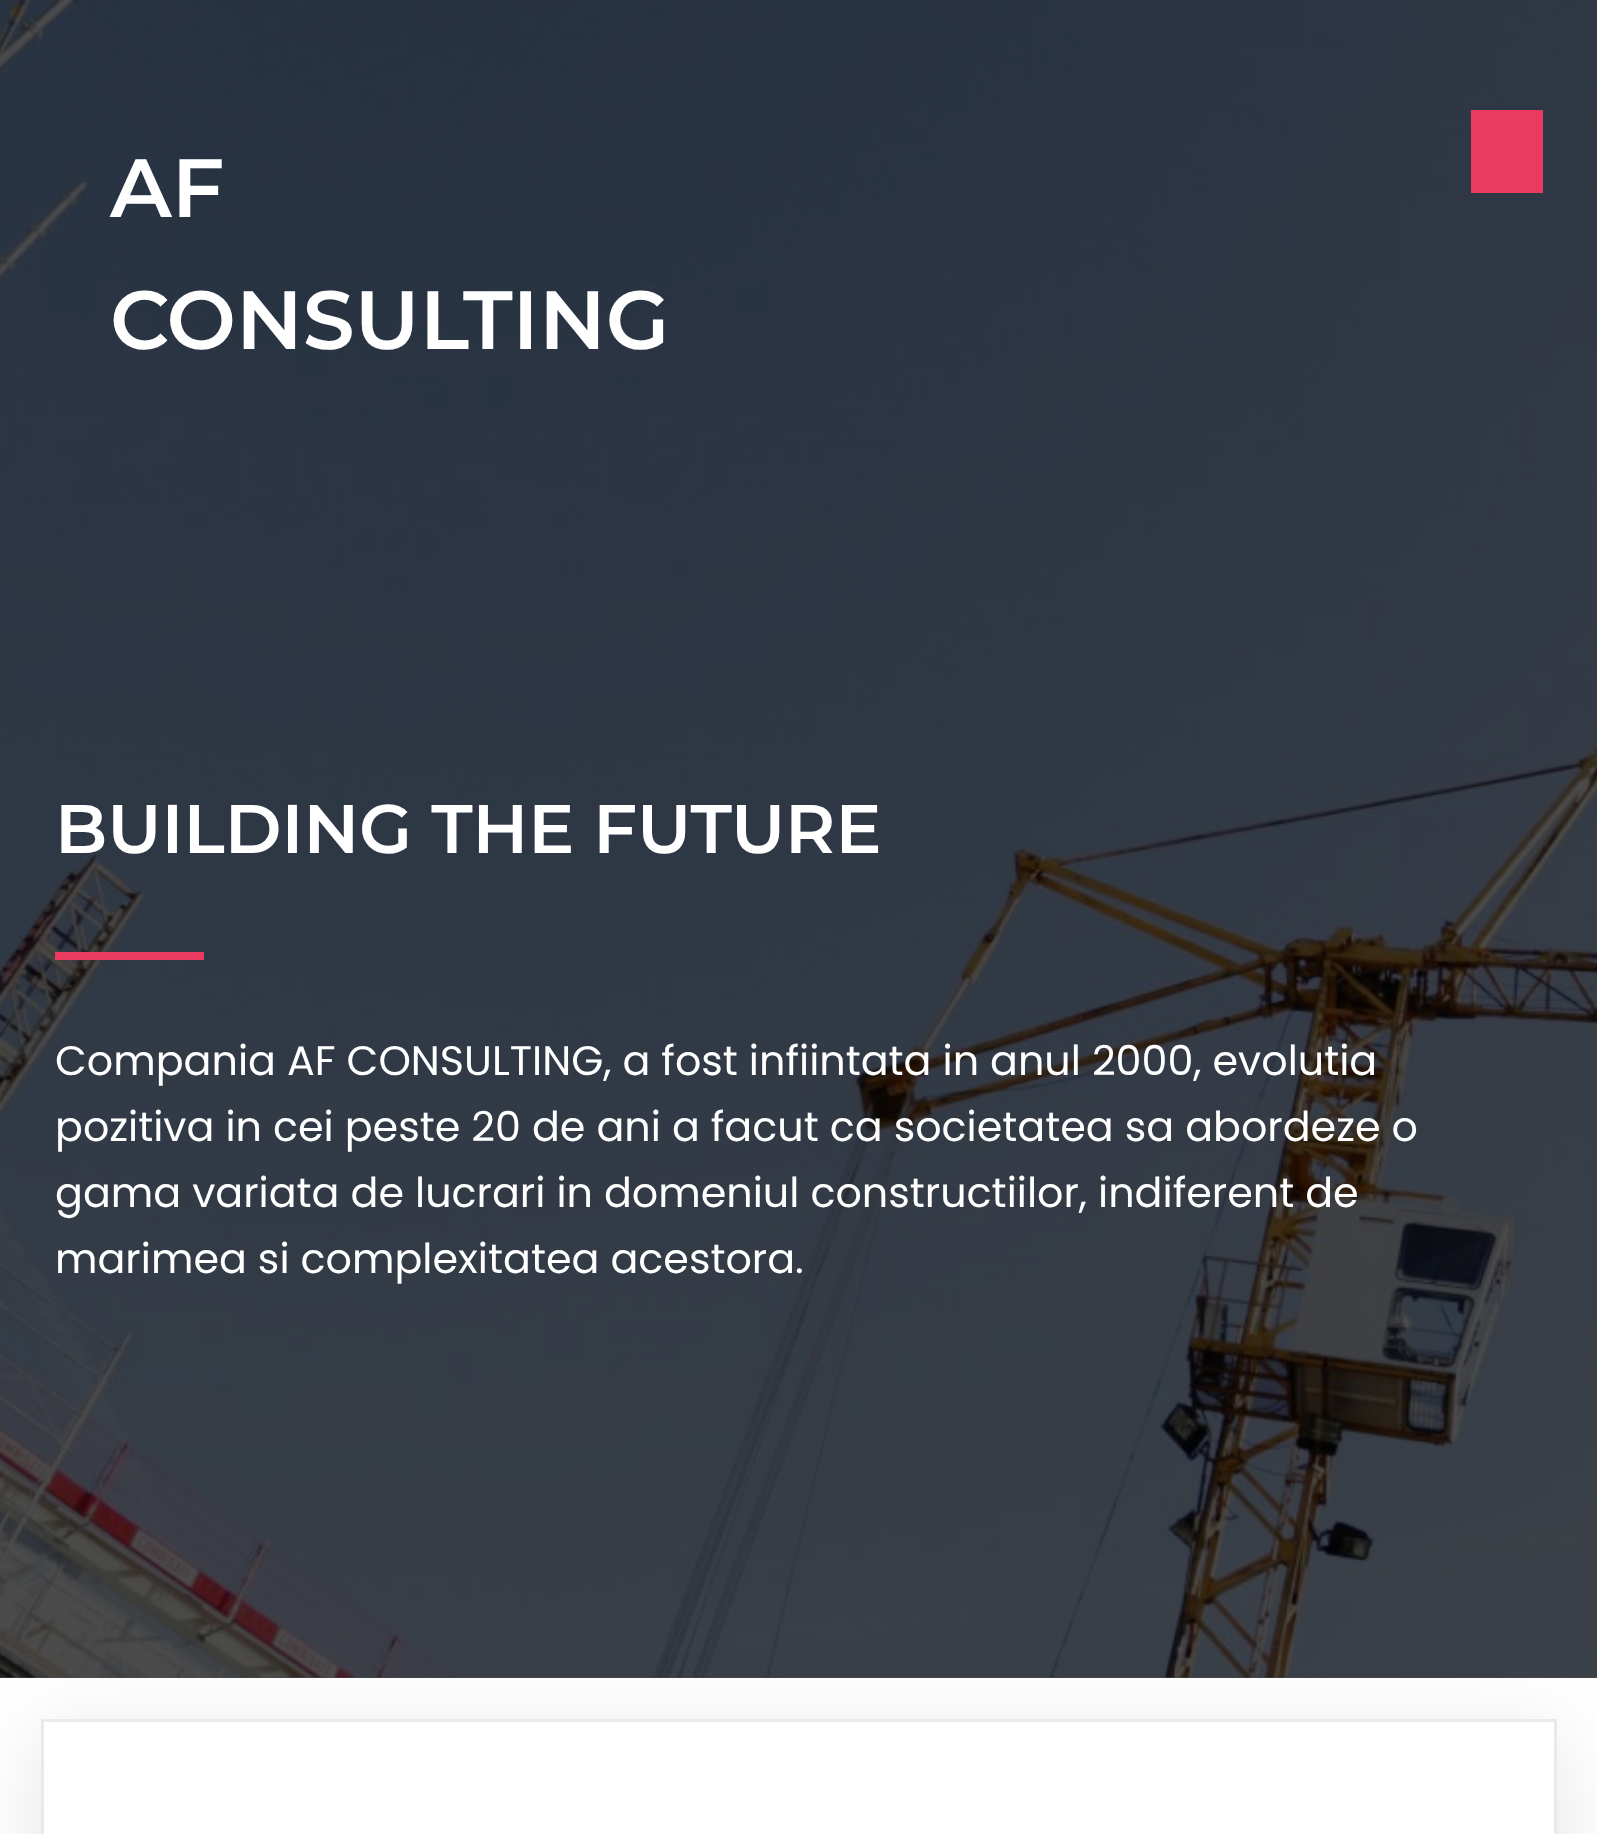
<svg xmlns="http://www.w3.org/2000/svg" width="1597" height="1834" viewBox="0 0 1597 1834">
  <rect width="100%" height="100%" fill="#fff"/>
  <path d="M41 1733h1516v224H41z" fill="#0000001a" filter="blur(41px)"/>
  <image x="0" y="0" width="1597" height="1678" href="img/1.png"/>
  <path d="M0 0h1597v1678H0z" fill="#000000b3"/>
  <path d="M1471 110h72v83H1471z" fill="#ea3a60"/>
  <path d="M55 952h149v8H55z" fill="#ea3a60"/>
  <path d="M42.5 1720.5h1513v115H42.5z" fill="#fff" stroke="#eaeaea" stroke-width="3"/>
  <g font-family="Montserrat" font-size="82.5" font-weight="600" fill="#fff">
    <text x="110" y="217">AF</text>
    <text x="110" y="349">CONSULTING</text>
  </g>
  <text x="55" y="853" font-family="Montserrat" font-size="68.75" font-weight="600" fill="#fff">BUILDING THE FUTURE</text>
  <g font-family="Poppins" font-size="41.25" fill="#fff">
    <text x="55" y="1075">Compania AF CONSULTING, a fost infiintata in anul 2000, evolutia</text>
    <text x="55" y="1141">pozitiva in cei peste 20 de ani a facut ca societatea sa abordeze o</text>
    <text x="55" y="1207">gama variata de lucrari in domeniul constructiilor, indiferent de</text>
    <text x="55" y="1273">marimea si complexitatea acestora.</text>
  </g>
</svg>
